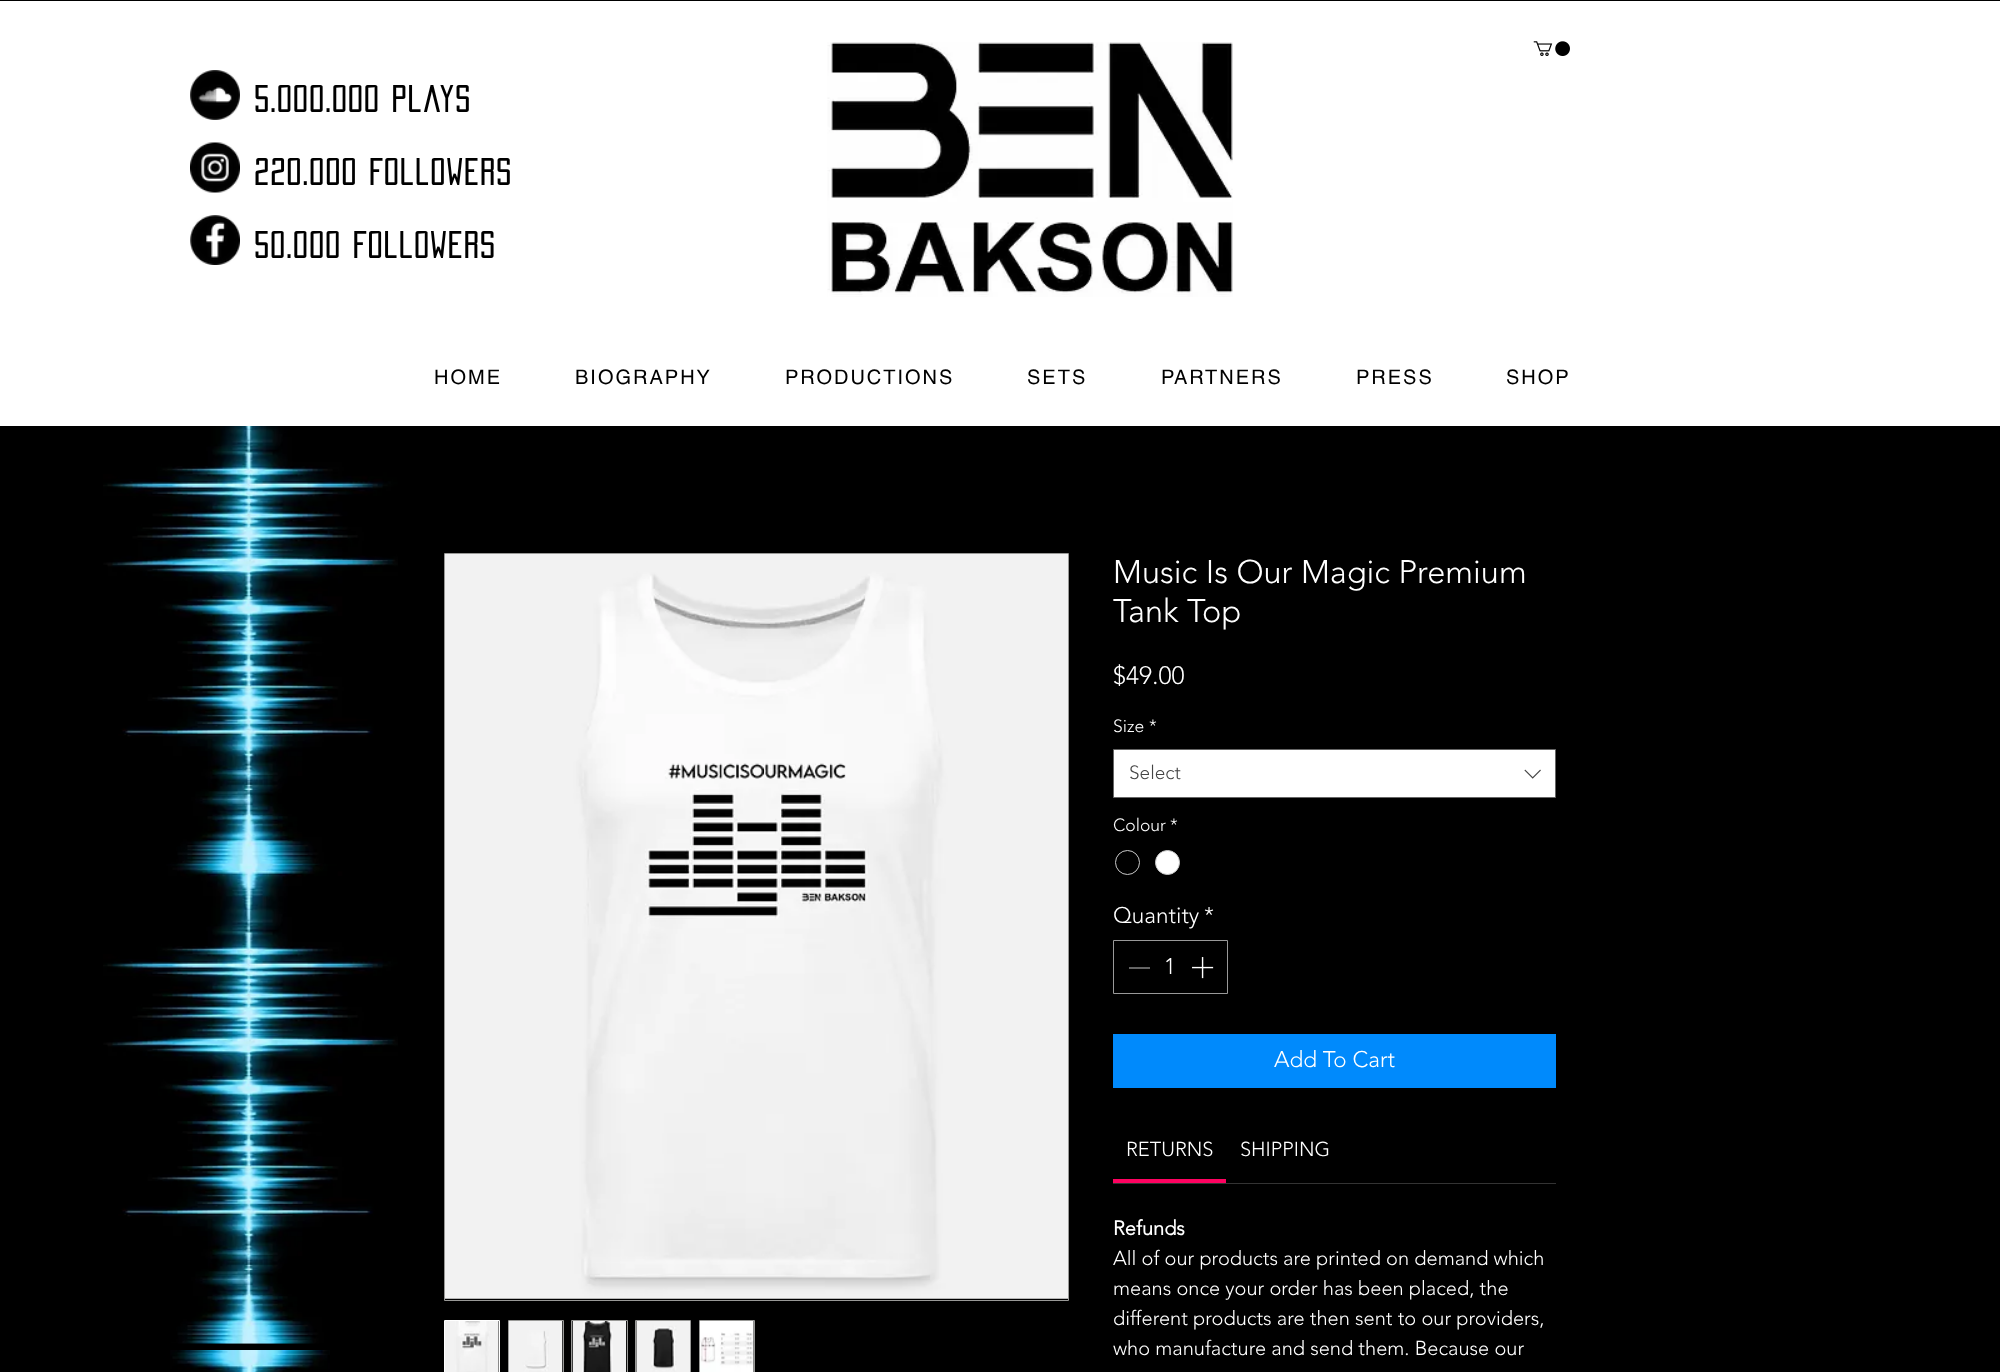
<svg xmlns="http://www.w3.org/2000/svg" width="2000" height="1372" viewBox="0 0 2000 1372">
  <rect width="100%" height="100%" fill="#000"/>
  <path d="M0 1h2000v425H0z" fill="#fff"/>
  <image x="190" y="70" width="50" height="50" href="img/1.png"/>
  <image x="190" y="142" width="50" height="51" href="img/2.png"/>
  <image x="190" y="215" width="50" height="50" href="img/3.png"/>
  <image x="827" y="42" width="406" height="255" href="img/4.png"/>
  <image x="1533" y="41" width="37" height="15" href="img/5.png"/>
  <image x="103" y="863" width="295" height="481" href="img/15.png"/>
  <image x="103" y="426" width="295" height="438" href="img/6.png"/>
  <path d="M444.5 553.5h624v747H444.5z" fill="none" stroke="#999997"/>
  <image x="445" y="554" width="623" height="745" href="img/7.png"/>
  <path d="M444.5 1320.5h55v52H444.5z" fill="none" stroke="#fff"/>
  <image x="445" y="1321" width="54" height="51" href="img/8.png"/>
  <path d="M508.5 1320.5h55v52H508.5z" fill="none" stroke="#999997"/>
  <image x="508" y="1321" width="55" height="51" href="img/9.png"/>
  <path d="M571.5 1320.5h56v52H571.5z" fill="none" stroke="#999997"/>
  <image x="572" y="1321" width="55" height="51" href="img/10.png"/>
  <path d="M635.5 1320.5h55v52H635.5z" fill="none" stroke="#999997"/>
  <image x="636" y="1321" width="54" height="51" href="img/11.png"/>
  <path d="M699.5 1320.5h55v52H699.5z" fill="none" stroke="#999997"/>
  <image x="700" y="1321" width="54" height="51" href="img/12.png"/>
  <path d="M1113.5 749.5h442v48H1113.5z" fill="#fff" stroke="#666"/>
  <image x="1524" y="769" width="17" height="10" href="img/13.png"/>
  <circle cx="1127.5" cy="862.5" r="12" fill="none" stroke="#c9c9c9"/>
  <circle cx="1167.5" cy="862.5" r="12" fill="#fff" stroke="#c9c9c9"/>
  <path d="M1113.5 940.5h114v53H1113.5z" fill="none" stroke="#999"/>
  <path d="M1129 967h21v2H1129z" fill="#646464"/>
  <image x="1192" y="957" width="22" height="22" href="img/14.png"/>
  <path d="M1113 1034h443v54H1113z" fill="#008afc"/>
  <path d="M1113 1183h443v1H1113z" fill="#333"/>
  <path d="M1113 1179h113v4H1113z" fill="#fe0260"/>
  <image x="170" y="1350" width="160" height="22" href="img/16.png"/>
  <g font-family="'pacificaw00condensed'" font-size="32.5" font-weight="bold" letter-spacing="1.6" fill="#000">
    <text x="254" y="112">5.000.000 plays</text>
    <text x="254" y="185">220.000 Followers</text>
    <text x="254" y="258">50.000 Followers</text>
  </g>
  <g font-family="helvetica" font-size="20" letter-spacing="2" fill="#000">
    <text x="434" y="384">HOME</text>
    <text x="575" y="384">BIOGRAPHY</text>
    <text x="785" y="384">PRODUCTIONS</text>
    <text x="1027" y="384">SETS</text>
    <text x="1161" y="384">PARTNERS</text>
    <text x="1356" y="384">PRESS</text>
    <text x="1506" y="384">SHOP</text>
  </g>
  <g font-family="'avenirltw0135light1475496'" font-size="32.5" font-weight="300" fill="#fff">
    <text x="1113" y="583">Music Is Our Magic Premium</text>
    <text x="1113" y="622">Tank Top</text>
  </g>
  <text x="1113" y="684" font-family="'avenirltw0135light1475496'" font-size="25" font-weight="300" fill="#fff">$49.00</text>
  <g font-family="'avenirltw0135light1475496'" font-size="17.5" font-weight="300" fill="#fff">
    <text x="1113" y="732">Size</text>
    <text x="1149" y="732">*</text>
  </g>
  <text x="1129" y="779" font-family="'avenirltw0135light1475496'" font-size="19" font-weight="300" fill="#444">Select</text>
  <g font-family="'avenirltw0135light1475496'" font-size="17.5" font-weight="300" fill="#fff">
    <text x="1113" y="831">Colour</text>
    <text x="1170" y="831">*</text>
  </g>
  <g font-family="'avenirltw0135light1475496'" font-size="22.5" font-weight="300" fill="#fff">
    <text x="1113" y="923">Quantity</text>
    <text x="1204" y="923">*</text>
    <text x="1164" y="974">1</text>
    <text x="1274" y="1067">Add To Cart</text>
  </g>
  <g font-family="'avenirltw0135light1475496'" font-size="20" font-weight="300" fill="#fff">
    <text x="1126" y="1156">RETURNS</text>
    <text x="1240" y="1156">SHIPPING</text>
  </g>
  <text x="1113" y="1235" font-family="'avenirltw0135light1475496'" font-size="20" font-weight="bold" fill="#fff">Refunds</text>
  <g font-family="'avenirltw0135light1475496'" font-size="20" font-weight="300" fill="#fff">
    <text x="1113" y="1265">All of our products are printed on demand which</text>
    <text x="1113" y="1295">means once your order has been placed, the</text>
    <text x="1113" y="1325">different products are then sent to our providers,</text>
    <text x="1113" y="1355">who manufacture and send them. Because our</text>
  </g>
</svg>
